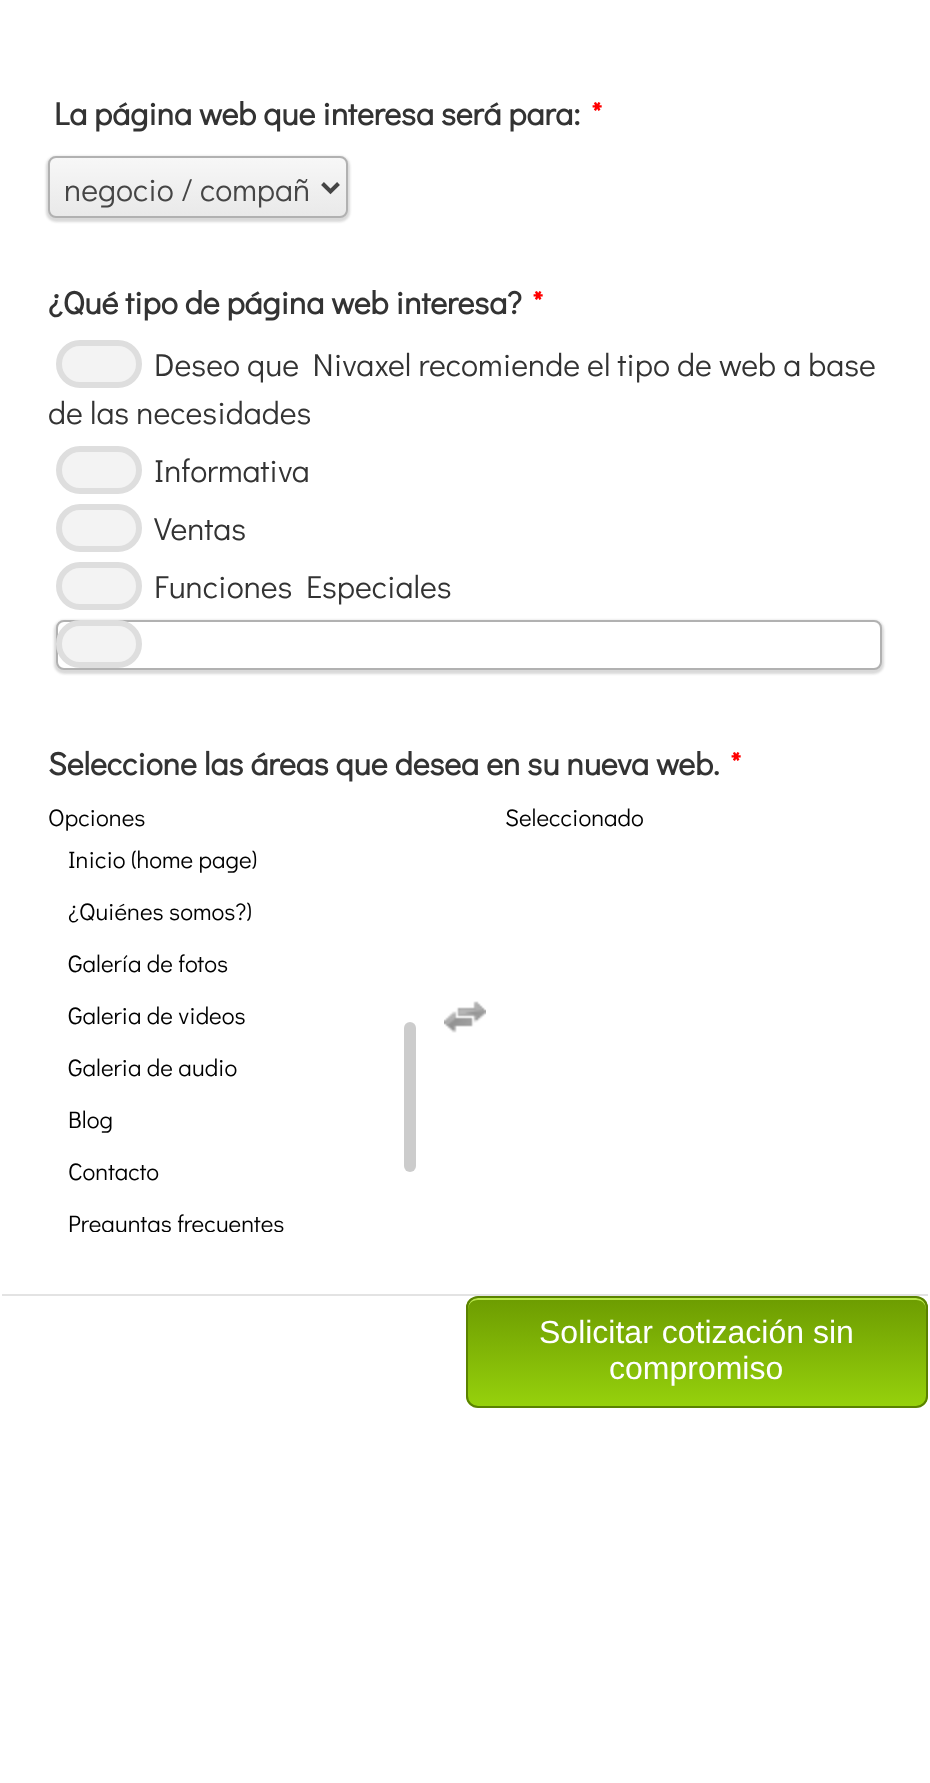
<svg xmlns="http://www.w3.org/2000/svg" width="930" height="1783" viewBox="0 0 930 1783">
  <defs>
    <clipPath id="clip1"><rect x="48" y="156" width="300" height="62" rx="8"/></clipPath>
    <linearGradient id="g1" gradientUnits="userSpaceOnUse" x1="198" y1="158" x2="198" y2="216"><stop offset="0" stop-color="#f7f7f7"/><stop offset="1" stop-color="#e9e9e9"/></linearGradient>
    <clipPath id="clip2"><rect x="466" y="1296" width="462" height="112" rx="12"/></clipPath>
    <linearGradient id="g2" gradientUnits="userSpaceOnUse" x1="697" y1="1406" x2="697" y2="1298"><stop offset="0" stop-color="#96d10c"/><stop offset="1" stop-color="#6d9c01"/></linearGradient>
    <clipPath id="clip3"><path d="M64 164h244v46H64z"/></clipPath>
  </defs>
  <rect width="100%" height="100%" fill="#fff"/>
  <rect x="46" y="156" width="304" height="66" rx="10" fill="#ababab73" filter="blur(1px)"/>
  <g clip-path="url(#clip1)">
    <path d="M50 158h296v58H50z" fill="url(#g1)"/>
  </g>
  <rect x="49" y="157" width="298" height="60" rx="7" fill="none" stroke="#b1b1b1" stroke-width="2"/>
  <path d="M322.5 183.5L330.5 191.5L338.5 183.5" fill="none" stroke="#454545" stroke-width="4"/>
  <rect x="59" y="343" width="80" height="42" rx="21" fill="#f3f3f3" stroke="#dedede" stroke-width="6"/>
  <rect x="59" y="449" width="80" height="42" rx="21" fill="#f3f3f3" stroke="#dedede" stroke-width="6"/>
  <rect x="59" y="507" width="80" height="42" rx="21" fill="#f3f3f3" stroke="#dedede" stroke-width="6"/>
  <rect x="59" y="565" width="80" height="42" rx="21" fill="#f3f3f3" stroke="#dedede" stroke-width="6"/>
  <rect x="54" y="620" width="830" height="54" rx="10" fill="#ababab73" filter="blur(1px)"/>
  <rect x="57" y="621" width="824" height="48" rx="7" fill="#fff" stroke="#b1b1b1" stroke-width="2"/>
  <rect x="59" y="623" width="80" height="42" rx="21" fill="#f3f3f3" stroke="#dedede" stroke-width="6"/>
  <image x="49" y="808" width="594" height="424" href="img/1.png"/>
  <path d="M2 1294h926v2H2z" fill="#e3e3e3"/>
  <g clip-path="url(#clip2)">
    <path d="M466 1298h462v108H466z" fill="url(#g2)"/>
  </g>
  <path d="M478 1300H916C922 1300 926 1304 926 1310V1308C926 1302 922 1298 916 1298H478C472 1298 468 1302 468 1308V1310C468 1304 472 1300 478 1300Z" fill="#b9e84b"/>
  <rect x="467" y="1297" width="460" height="110" rx="11" fill="none" stroke="#5a8200" stroke-width="2"/>
  <text x="54" y="125" font-family="Didact Gothic" font-size="32" font-weight="bold" fill="#333">La página web que interesa será para:</text>
  <text x="591" y="125" font-family="Didact Gothic" font-size="32" font-weight="bold" fill="#f00">*</text>
  <g clip-path="url(#clip3)">
    <text x="64" y="201" font-family="Didact Gothic" font-size="32" fill="#454545">negocio / compañ</text>
  </g>
  <text x="48" y="314" font-family="Didact Gothic" font-size="32" font-weight="bold" fill="#333">¿Qué tipo de página web interesa?</text>
  <text x="532" y="314" font-family="Didact Gothic" font-size="32" font-weight="bold" fill="#f00">*</text>
  <g font-family="Didact Gothic" font-size="32" fill="#333">
    <text x="154" y="376">Deseo que Nivaxel recomiende el tipo de web a base</text>
    <text x="48" y="424">de las necesidades</text>
    <text x="154" y="482">Informativa</text>
    <text x="154" y="540">Ventas</text>
    <text x="154" y="598">Funciones Especiales</text>
  </g>
  <text x="48" y="775" font-family="Didact Gothic" font-size="32" font-weight="bold" fill="#333">Seleccione las áreas que desea en su nueva web.</text>
  <text x="730" y="775" font-family="Didact Gothic" font-size="32" font-weight="bold" fill="#f00">*</text>
  <g font-family="Liberation Sans" font-size="32" fill="#fff">
    <text x="539" y="1343">Solicitar cotización sin</text>
    <text x="609" y="1379">compromiso</text>
  </g>
</svg>
